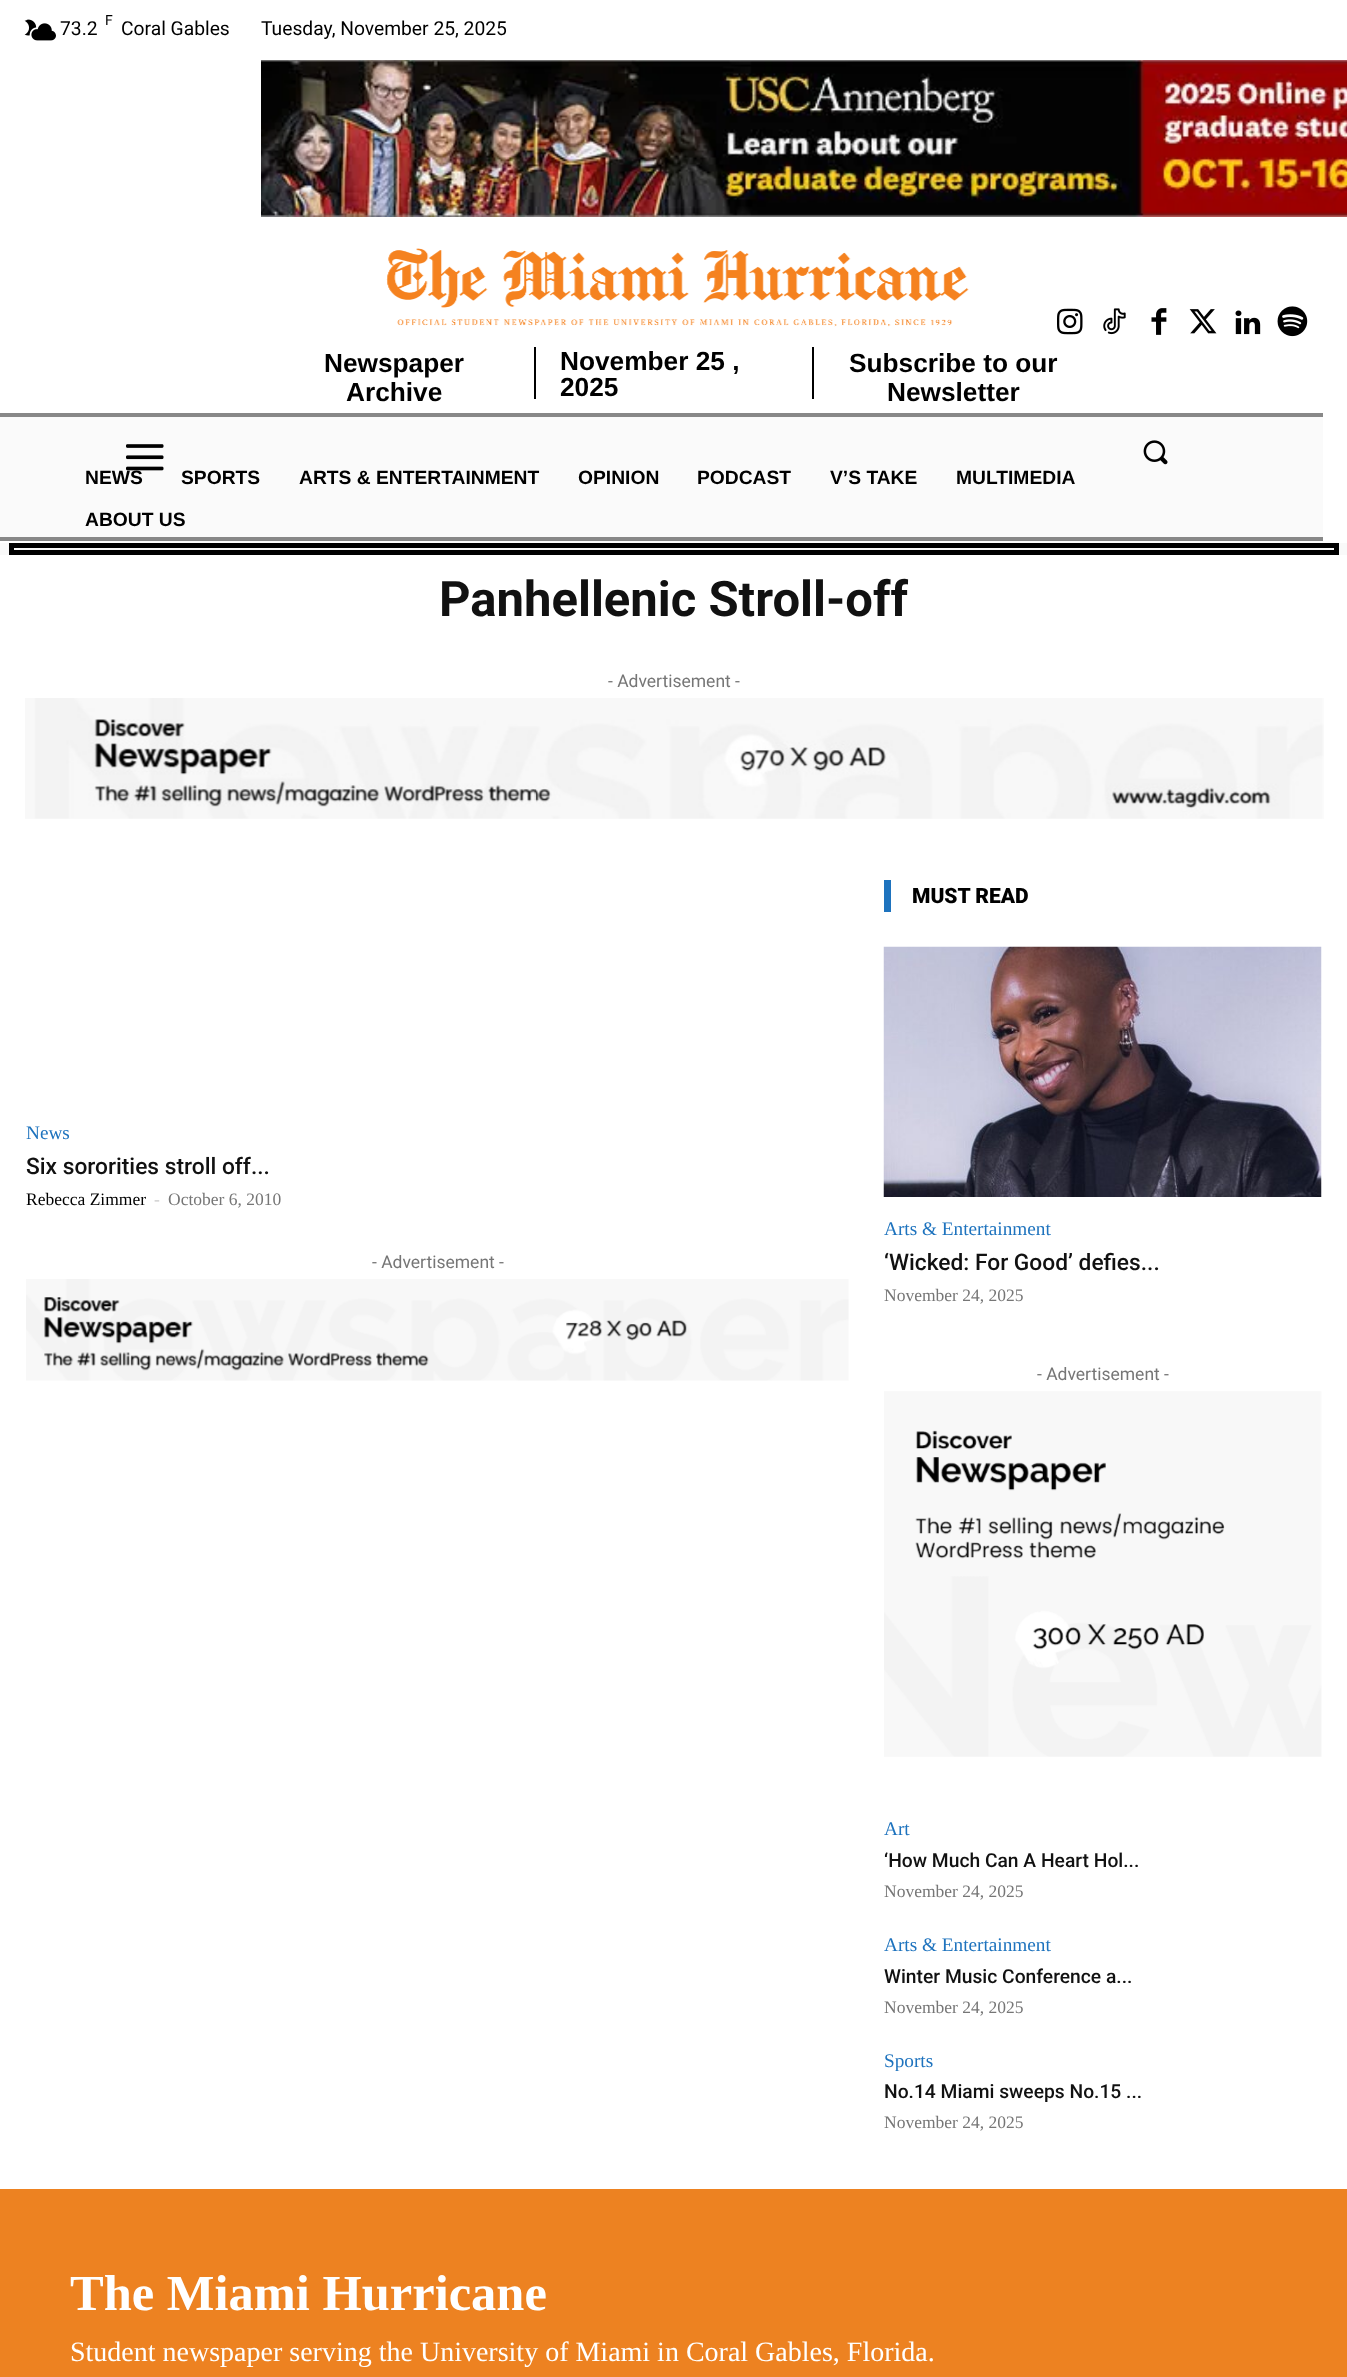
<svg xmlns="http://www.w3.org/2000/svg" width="1347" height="2377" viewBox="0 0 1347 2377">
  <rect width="100%" height="100%" fill="#fff"/>
  <image x="24" y="19" width="32" height="22" href="img/1.png"/>
  <image x="261" y="60" width="1086" height="157" href="img/2.png"/>
  <image x="386" y="248" width="583" height="79" href="img/3.png"/>
  <image x="1057" y="308" width="26" height="27" href="img/4.png"/>
  <image x="1103" y="308" width="23" height="27" href="img/5.png"/>
  <image x="1151" y="308" width="16" height="27" href="img/6.png"/>
  <image x="1189" y="309" width="28" height="25" href="img/7.png"/>
  <image x="1235" y="310" width="26" height="25" href="img/8.png"/>
  <image x="1277" y="306" width="31" height="31" href="img/9.png"/>
  <path d="M812 347h2v52H812z" fill="#000"/>
  <path d="M534 347h2v52H534z" fill="#000"/>
  <path d="M0 417h1323v120H0z" fill="#fafafa"/>
  <path d="M0 413h1323v4H0z" fill="#888"/>
  <path d="M0 537h1323v4H0z" fill="#888"/>
  <image x="126" y="444" width="38" height="27" href="img/10.png"/>
  <image x="1143" y="440" width="25" height="25" href="img/11.png"/>
  <path d="M0 543h1347v12H0z" fill="#f9f9f9"/>
  <path d="M11.5 545.5h1325v7H11.5z" fill="none" stroke="#000" stroke-width="5"/>
  <image x="25" y="698" width="1299" height="121" href="img/12.png"/>
  <image x="26" y="1279" width="823" height="102" href="img/13.png"/>
  <path d="M884 880h7v32H884z" fill="#1e73be"/>
  <image x="883" y="946" width="439" height="251" href="img/14.png"/>
  <image x="884" y="1391" width="438" height="366" href="img/15.png"/>
  <path d="M0 2189h1347v188H0z" fill="#ed8221"/>
  <text x="105" y="25" font-family="Roboto" font-size="14" fill="#000">F</text>
  <g font-family="Roboto" font-size="19.25" fill="#000">
    <text x="60" y="35">73.2</text>
    <text x="121" y="35">Coral Gables</text>
    <text x="261" y="35">Tuesday, November 25, 2025</text>
  </g>
  <g font-family="Liberation Sans" font-size="26.25" font-weight="bold" fill="#000">
    <text x="324" y="372">Newspaper</text>
    <text x="346" y="401">Archive</text>
    <text x="560" y="370">November 25 ,</text>
    <text x="560" y="396">2025</text>
    <text x="849" y="372">Subscribe to our</text>
    <text x="887" y="401">Newsletter</text>
  </g>
  <g font-family="Liberation Sans" font-size="19.25" font-weight="bold" fill="#000">
    <text x="85" y="484">NEWS</text>
    <text x="181" y="484">SPORTS</text>
    <text x="299" y="484">ARTS &amp; ENTERTAINMENT</text>
    <text x="578" y="484">OPINION</text>
    <text x="697" y="484">PODCAST</text>
    <text x="830" y="484">V’S TAKE</text>
    <text x="956" y="484">MULTIMEDIA</text>
    <text x="85" y="526">ABOUT US</text>
  </g>
  <text x="439" y="616" font-family="Roboto" font-size="49" font-weight="bold" fill="#111">Panhellenic Stroll-off</text>
  <text x="608" y="687" font-family="Roboto" font-size="17.5" fill="#767676">- Advertisement -</text>
  <text x="26" y="1139" font-family="Liberation Serif" font-size="19.25" fill="#1e73be">News</text>
  <text x="26" y="1174" font-family="Roboto" font-size="22.75" font-weight="500" fill="#111">Six sororities stroll off...</text>
  <text x="26" y="1205" font-family="Liberation Serif" font-size="17.5" fill="#000">Rebecca Zimmer</text>
  <text x="154" y="1205" font-family="Liberation Serif" font-size="17.5" fill="#ccc">-</text>
  <text x="168" y="1205" font-family="Liberation Serif" font-size="17.5" fill="#767676">October 6, 2010</text>
  <text x="372" y="1268" font-family="Roboto" font-size="17.5" fill="#767676">- Advertisement -</text>
  <text x="912" y="903" font-family="Roboto" font-size="21" font-weight="900" fill="#000">MUST READ</text>
  <text x="884" y="1235" font-family="Liberation Serif" font-size="19.25" fill="#1e73be">Arts &amp; Entertainment</text>
  <text x="884" y="1270" font-family="Roboto" font-size="22.75" font-weight="500" fill="#111">‘Wicked: For Good’ defies...</text>
  <text x="884" y="1301" font-family="Liberation Serif" font-size="17.5" fill="#767676">November 24, 2025</text>
  <text x="1037" y="1380" font-family="Roboto" font-size="17.5" fill="#767676">- Advertisement -</text>
  <text x="884" y="1835" font-family="Liberation Serif" font-size="19.25" fill="#1e73be">Art</text>
  <text x="884" y="1867" font-family="Roboto" font-size="19.25" font-weight="500" fill="#111">‘How Much Can A Heart Hol...</text>
  <text x="884" y="1897" font-family="Liberation Serif" font-size="17.5" fill="#767676">November 24, 2025</text>
  <text x="884" y="1951" font-family="Liberation Serif" font-size="19.25" fill="#1e73be">Arts &amp; Entertainment</text>
  <text x="884" y="1983" font-family="Roboto" font-size="19.25" font-weight="500" fill="#111">Winter Music Conference a...</text>
  <text x="884" y="2013" font-family="Liberation Serif" font-size="17.5" fill="#767676">November 24, 2025</text>
  <text x="884" y="2067" font-family="Liberation Serif" font-size="19.25" fill="#1e73be">Sports</text>
  <text x="884" y="2098" font-family="Roboto" font-size="19.25" font-weight="500" fill="#111">No.14 Miami sweeps No.15 ...</text>
  <text x="884" y="2128" font-family="Liberation Serif" font-size="17.5" fill="#767676">November 24, 2025</text>
  <text x="70" y="2310" font-family="Liberation Serif" font-size="50.5" font-weight="bold" fill="#fff">The Miami Hurricane</text>
  <text x="70" y="2361" font-family="Liberation Serif" font-size="28" fill="#fff">Student newspaper serving the University of Miami in Coral Gables, Florida.</text>
</svg>
